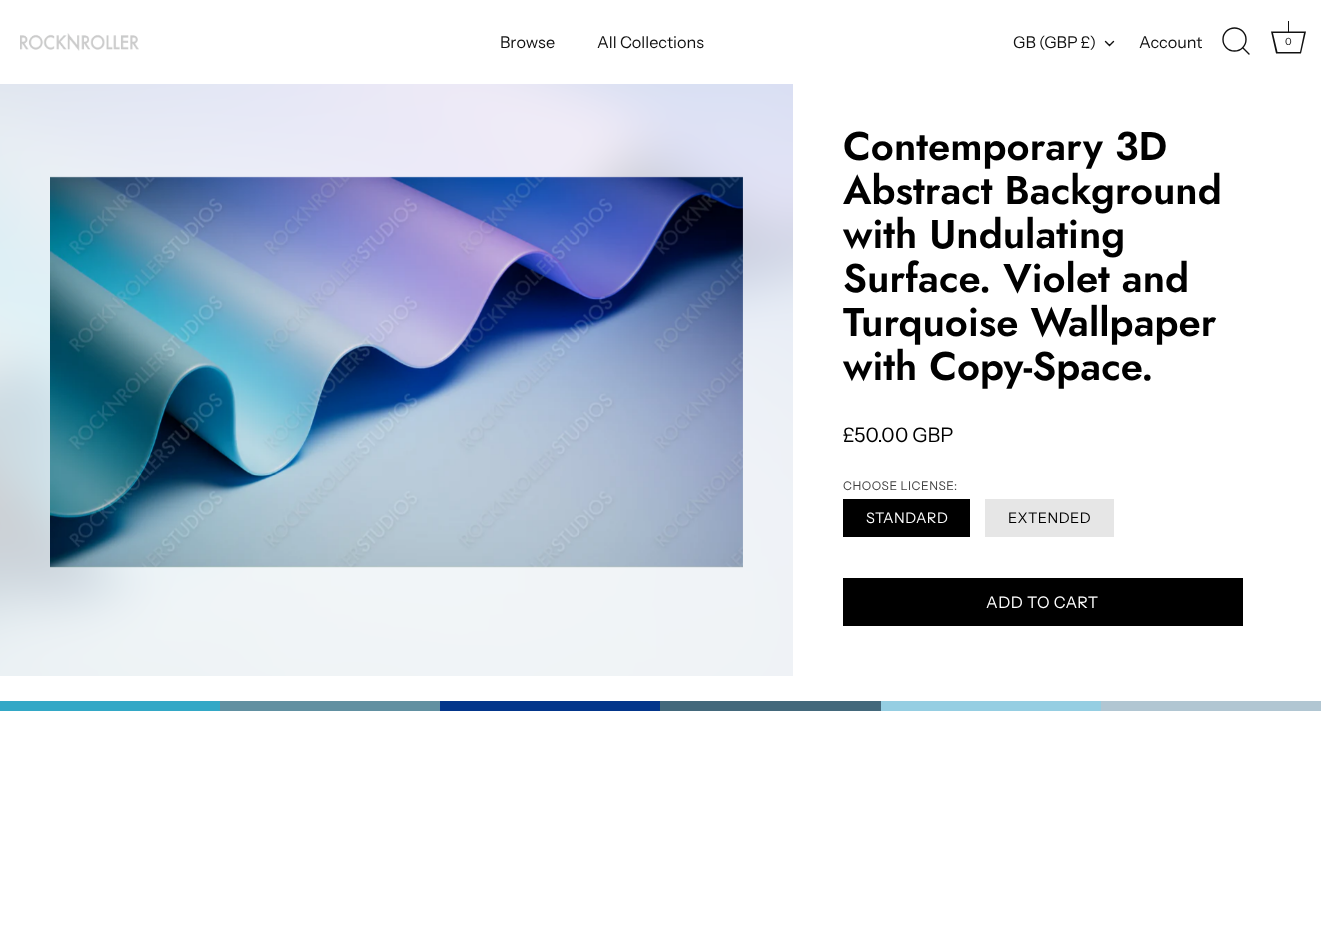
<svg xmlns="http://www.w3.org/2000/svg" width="1321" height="943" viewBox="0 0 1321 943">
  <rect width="100%" height="100%" fill="#fff"/>
  <image x="20" y="33" width="119" height="18" href="img/1.png"/>
  <path d="M1105.5 41.5L1109.5 45.5L1113.5 41.5" fill="none" stroke="#111" stroke-width="1.4" stroke-linecap="round"/>
  <circle cx="1234.5" cy="39.5" r="11.5" fill="none" stroke="#111" stroke-width="1.4"/>
  <path d="M1249 54L1243 48" fill="none" stroke="#111" stroke-width="1.4" stroke-linecap="round" stroke-linejoin="round"/>
  <path d="M1304 33L1300 52H1277.5L1273 33H1304M1306 31.5H1271L1276 53.5H1301Z" fill="#111"/>
  <path d="M1288 21h1v11H1288z" fill="#111"/>
  <image x="0" y="84" width="793" height="592" href="img/2.png"/>
  <image x="50" y="176" width="693" height="392" href="img/3.png"/>
  <path d="M843 499h127v38H843z" fill="#000"/>
  <path d="M985 499h129v38H985z" fill="#e6e6e6"/>
  <path d="M843 578h400v48H843z" fill="#000"/>
  <path d="M0 701h220v10H0z" fill="#33a8c6"/>
  <path d="M220 701h220v10H220z" fill="#6190a1"/>
  <path d="M440 701h220v10H440z" fill="#02358a"/>
  <path d="M660 701h221v10H660z" fill="#43687b"/>
  <path d="M881 701h220v10H881z" fill="#95cee2"/>
  <path d="M1101 701h220v10H1101z" fill="#b1c6d2"/>
  <g font-family="Instrument Sans" font-size="16.25" fill="#111">
    <text x="500" y="48">Browse</text>
    <text x="597" y="48">All Collections</text>
    <text x="1013" y="48">GB (GBP £)</text>
    <text x="1139" y="48">Account</text>
  </g>
  <text x="1285" y="45" font-family="Instrument Sans" font-size="10" fill="#111">0</text>
  <g font-family="Jost" font-size="40" font-weight="600" fill="#000">
    <text x="843" y="160">Contemporary 3D</text>
    <text x="843" y="204">Abstract Background</text>
    <text x="843" y="248">with Undulating</text>
    <text x="843" y="292">Surface. Violet and</text>
    <text x="843" y="336">Turquoise Wallpaper</text>
    <text x="843" y="380">with Copy-Space.</text>
  </g>
  <text x="843" y="442" font-family="Instrument Sans" font-size="20" fill="#000">£50.00 GBP</text>
  <text x="843" y="490" font-family="Instrument Sans" font-size="12" letter-spacing="0.5" fill="#404040">CHOOSE LICENSE:</text>
  <text x="866" y="523" font-family="Instrument Sans" font-size="14.5" letter-spacing="0.5" fill="#fff">STANDARD</text>
  <text x="1008" y="523" font-family="Instrument Sans" font-size="14.5" letter-spacing="0.5" fill="#000">EXTENDED</text>
  <text x="986" y="608" font-family="Instrument Sans" font-size="16" letter-spacing="0.5" fill="#fff">ADD TO CART</text>
</svg>
